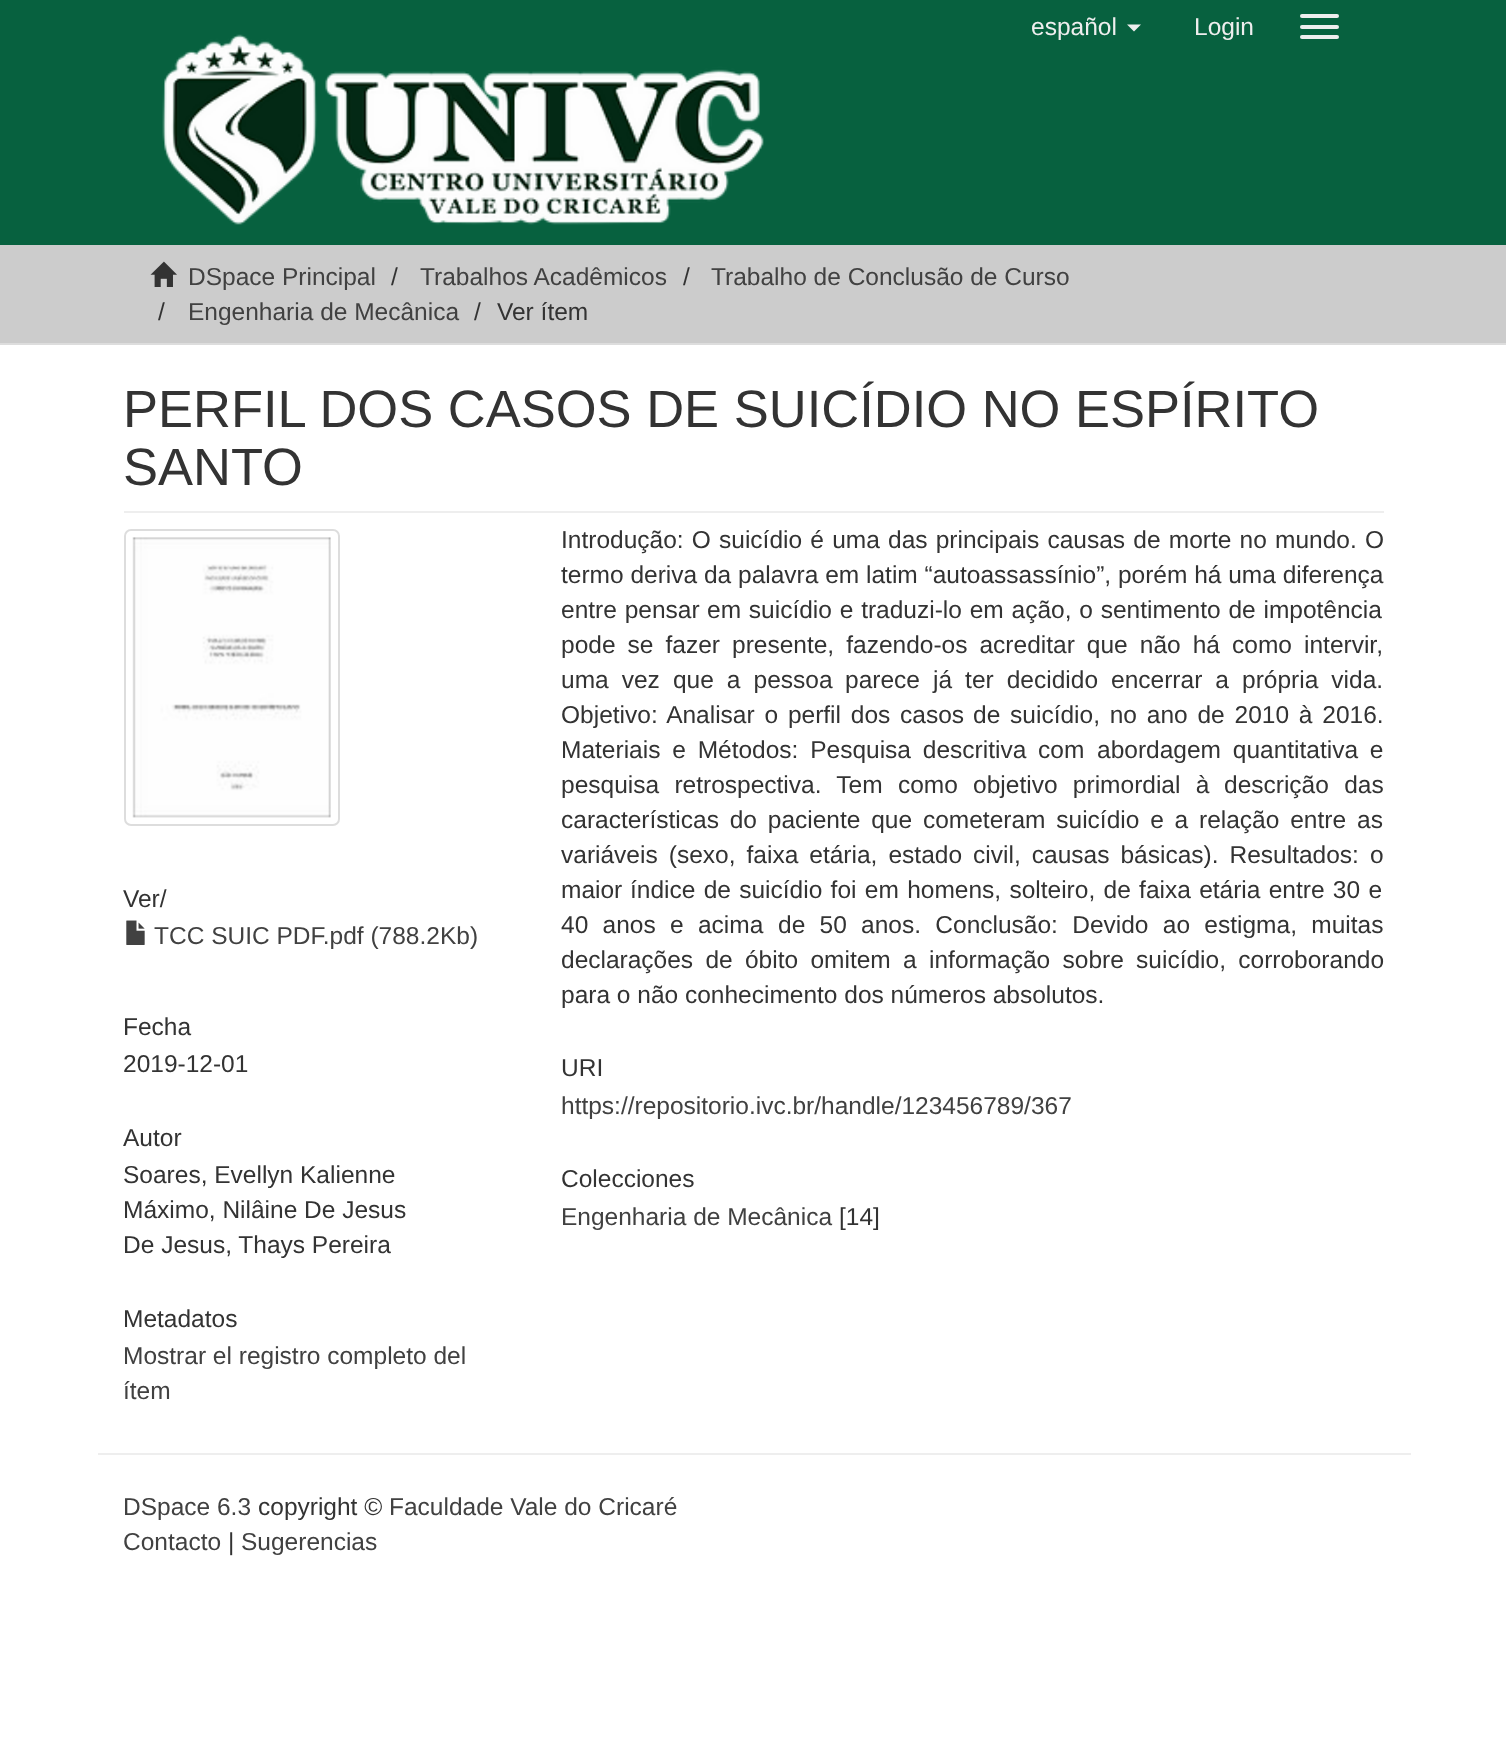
<svg xmlns="http://www.w3.org/2000/svg" width="1506" height="1754" viewBox="0 0 1506 1754">
  <rect width="100%" height="100%" fill="#fff"/>
  <path d="M0 0h1506v245H0z" fill="#07613f"/>
  <path d="M1127 24.5H1141L1134 31.5Z" fill="#eee"/>
  <rect x="1300" y="14" width="39" height="4" rx="2" fill="#eee"/>
  <rect x="1300" y="25" width="39" height="4" rx="2" fill="#eee"/>
  <rect x="1300" y="35" width="39" height="4" rx="2" fill="#eee"/>
  <image x="162" y="34" width="602" height="191" href="img/1.png"/>
  <path d="M0 245h1506v98H0z" fill="#ccc"/>
  <path d="M0 343h1506v2H0z" fill="#ddd"/>
  <image x="150" y="261" width="27" height="26" href="img/2.png"/>
  <path d="M124 511h1260v2H124z" fill="#eee"/>
  <rect x="125" y="530" width="214" height="295" rx="6" fill="none" stroke="#ddd" stroke-width="2"/>
  <image x="132" y="537" width="199" height="281" href="img/3.png"/>
  <image x="126" y="920" width="19" height="25" href="img/4.png"/>
  <path d="M98 1453h1313v2H98z" fill="#eee"/>
  <g font-family="Liberation Sans" font-size="24.5" fill="#eee">
    <text x="1031" y="35">español</text>
    <text x="1194" y="35">Login</text>
  </g>
  <text x="188" y="285" font-family="Liberation Sans" font-size="24.5" fill="#414141">DSpace Principal</text>
  <text x="391" y="285" font-family="Liberation Sans" font-size="24.5" fill="#333">/</text>
  <text x="420" y="285" font-family="Liberation Sans" font-size="24.5" fill="#414141">Trabalhos Acadêmicos</text>
  <text x="683" y="285" font-family="Liberation Sans" font-size="24.5" fill="#333">/</text>
  <text x="711" y="285" font-family="Liberation Sans" font-size="24.5" fill="#414141">Trabalho de Conclusão de Curso</text>
  <text x="158" y="320" font-family="Liberation Sans" font-size="24.5" fill="#333">/</text>
  <text x="188" y="320" font-family="Liberation Sans" font-size="24.5" fill="#414141">Engenharia de Mecânica</text>
  <g font-family="Liberation Sans" font-size="24.5" fill="#333">
    <text x="474" y="320">/</text>
    <text x="497" y="320">Ver ítem</text>
  </g>
  <g font-family="Liberation Sans" font-size="52.5" fill="#333">
    <text x="123" y="427">PERFIL DOS CASOS DE SUICÍDIO NO ESPÍRITO</text>
    <text x="123" y="485">SANTO</text>
  </g>
  <text x="123" y="907" font-family="Liberation Sans" font-size="24.5" fill="#333">Ver/</text>
  <text x="154" y="944" font-family="Liberation Sans" font-size="24.5" fill="#414141">TCC SUIC PDF.pdf (788.2Kb)</text>
  <g font-family="Liberation Sans" font-size="24.5" fill="#333">
    <text x="123" y="1035">Fecha</text>
    <text x="123" y="1072">2019-12-01</text>
    <text x="123" y="1146">Autor</text>
    <text x="123" y="1183">Soares, Evellyn Kalienne</text>
    <text x="123" y="1218">Máximo, Nilâine De Jesus</text>
    <text x="123" y="1253">De Jesus, Thays Pereira</text>
    <text x="123" y="1327">Metadatos</text>
  </g>
  <g font-family="Liberation Sans" font-size="24.5" fill="#414141">
    <text x="123" y="1364">Mostrar el registro completo del</text>
    <text x="123" y="1399">ítem</text>
  </g>
  <g font-family="Liberation Sans" font-size="24.5" fill="#333">
    <text x="561" y="548" word-spacing="1.4">Introdução: O suicídio é uma das principais causas de morte no mundo. O</text>
    <text x="561" y="583">termo deriva da palavra em latim “autoassassínio”, porém há uma diferença</text>
    <text x="561" y="618" word-spacing="1">entre pensar</text>
    <text x="707" y="618" word-spacing="1">em suicídio e traduzi-lo em ação, o sentimento de impotência</text>
    <text x="561" y="653" word-spacing="5.25">pode se fazer</text>
    <text x="732" y="653" word-spacing="5.25">presente, fazendo-os acreditar que não há como intervir,</text>
    <text x="561" y="688" word-spacing="6.25">uma vez que a pessoa</text>
    <text x="845" y="688" word-spacing="6.25">parece já ter decidido encerrar a própria vida.</text>
    <text x="561" y="723" word-spacing="3">Objetivo: Analisar o perfil dos casos</text>
    <text x="973" y="723" word-spacing="3">de suicídio, no ano de 2010 à 2016.</text>
    <text x="561" y="758" word-spacing="5">Materiais e Métodos: Pesquisa descritiva com</text>
    <text x="1097" y="758" word-spacing="5">abordagem quantitativa e</text>
    <text x="561" y="793" word-spacing="8.5">pesquisa retrospectiva. Tem como objetivo primordial à</text>
    <text x="1224" y="793" word-spacing="8.5">descrição das</text>
    <text x="561" y="828" word-spacing="4">características do paciente que cometeram suicídio e a relação entre</text>
    <text x="1357" y="828">as</text>
    <text x="561" y="863" word-spacing="4.25">variáveis (sexo, faixa etária, estado civil, causas básicas). Resultados: o</text>
    <text x="561" y="898">maior</text>
    <text x="630" y="898" word-spacing="1.5">índice de suicídio foi em homens, solteiro, de faixa etária entre 30 e</text>
    <text x="561" y="933" word-spacing="7.5">40 anos e acima</text>
    <text x="778" y="933" word-spacing="7.5">de 50 anos. Conclusão: Devido ao estigma, muitas</text>
    <text x="561" y="968" word-spacing="5.5">declarações de óbito omitem a</text>
    <text x="929" y="968" word-spacing="5.5">informação sobre suicídio, corroborando</text>
    <text x="561" y="1003">para o não conhecimento dos números absolutos.</text>
    <text x="561" y="1076">URI</text>
  </g>
  <text x="561" y="1114" font-family="Liberation Sans" font-size="24.5" fill="#414141">https://repositorio.ivc.br/handle/123456789/367</text>
  <text x="561" y="1187" font-family="Liberation Sans" font-size="24.5" fill="#333">Colecciones</text>
  <text x="561" y="1225" font-family="Liberation Sans" font-size="24.5" fill="#414141">Engenharia de Mecânica</text>
  <text x="839" y="1225" font-family="Liberation Sans" font-size="24.5" fill="#333">[14]</text>
  <text x="123" y="1515" font-family="Liberation Sans" font-size="24.5" fill="#414141">DSpace 6.3</text>
  <text x="258" y="1515" font-family="Liberation Sans" font-size="24.5" fill="#333">copyright ©</text>
  <g font-family="Liberation Sans" font-size="24.5" fill="#414141">
    <text x="389" y="1515">Faculdade Vale do Cricaré</text>
    <text x="123" y="1550">Contacto</text>
  </g>
  <text x="228" y="1550" font-family="Liberation Sans" font-size="24.5" fill="#333">|</text>
  <text x="241" y="1550" font-family="Liberation Sans" font-size="24.5" fill="#414141">Sugerencias</text>
</svg>
